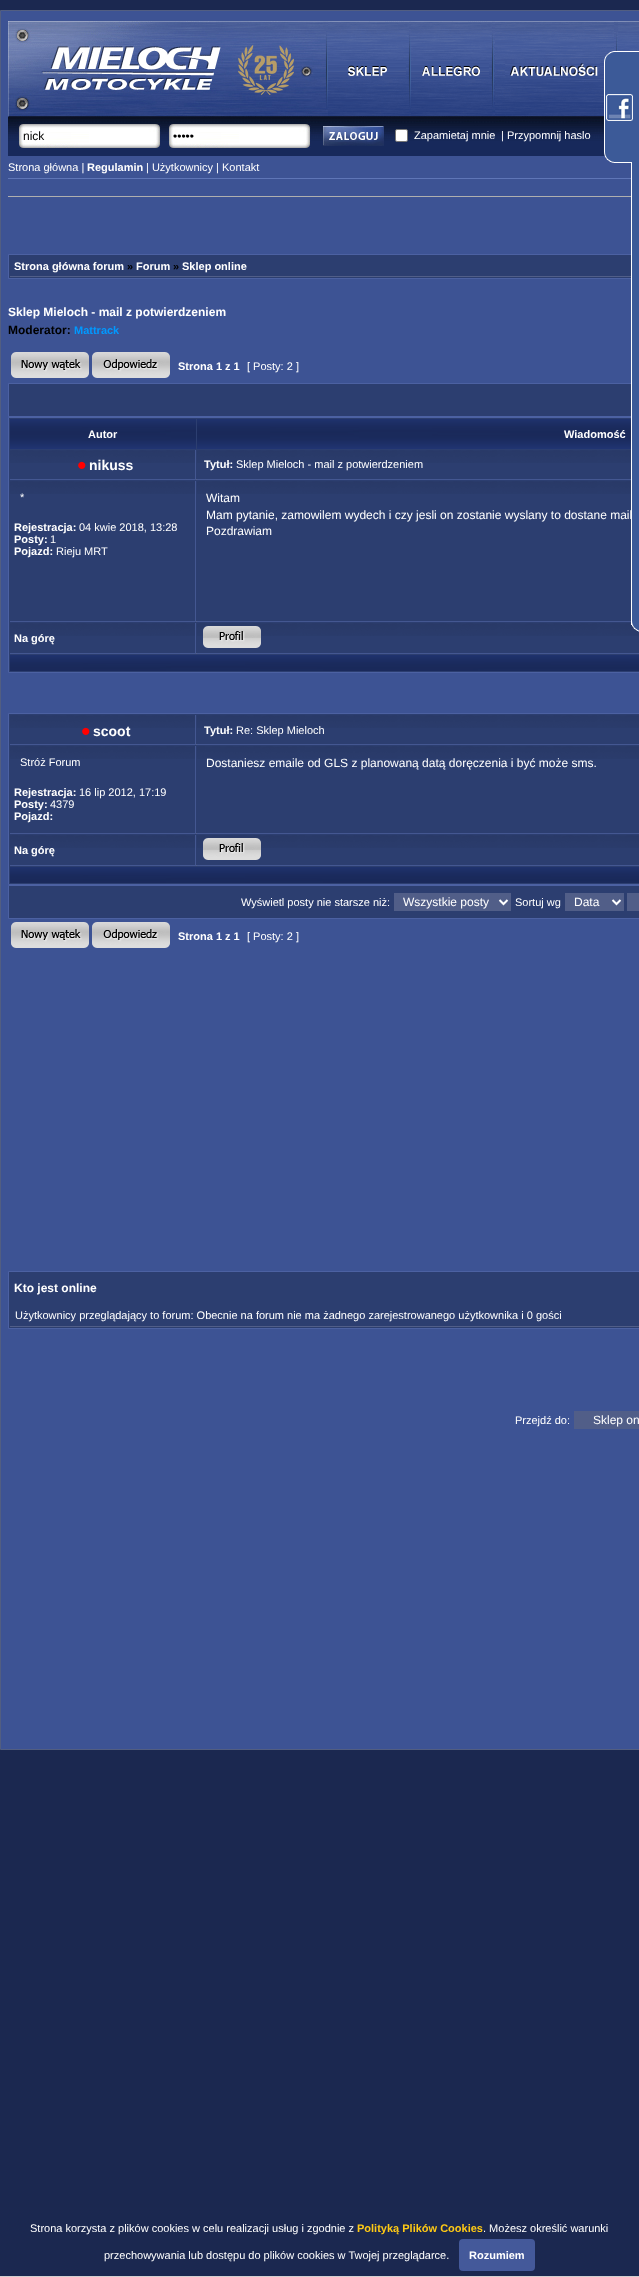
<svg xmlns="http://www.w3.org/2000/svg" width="639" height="2277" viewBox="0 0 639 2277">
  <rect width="100%" height="100%" fill="#1b2850"/>
  <path d="M0.5 10.5h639v1739H0.5z" fill="#3d5394" stroke="#525e81"/>
  <image x="8" y="21" width="610" height="135" href="img/2.png"/>
  <image x="238" y="45" width="56" height="50" href="img/3.png"/>
  <image x="300" y="66" width="13" height="11" href="img/4.png"/>
  <image x="326" y="31" width="2" height="77" href="img/5.png"/>
  <image x="328" y="21" width="81" height="95" href="img/6.png"/>
  <image x="409" y="33" width="2" height="74" href="img/7.png"/>
  <image x="411" y="21" width="81" height="95" href="img/8.png"/>
  <image x="492" y="33" width="2" height="74" href="img/7.png"/>
  <image x="495" y="21" width="119" height="95" href="img/9.png"/>
  <image x="616" y="32" width="2" height="19" href="img/10.png"/>
  <image x="618" y="21" width="21" height="31" href="img/11.png"/>
  <image x="18" y="124" width="143" height="24" href="img/12.png"/>
  <image x="168" y="124" width="143" height="24" href="img/12.png"/>
  <image x="323" y="126" width="61" height="20" href="img/13.png"/>
  <rect x="395.5" y="129.5" width="12" height="12" rx="1.5" fill="#fff" stroke="#767676"/>
  <path d="M8 178h631v1H8z" fill="#5f76b7"/>
  <path d="M8 196h631v1H8z" fill="#afafaf"/>
  <path d="M9 255h622v23H9z" fill="#2c3e70"/>
  <path d="M8.5 254.5h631v24H8.5z" fill="none" stroke="#4c61a2"/>
  <path d="M10 276h629v1H10z" fill="#515e88"/>
  <image x="11" y="352" width="78" height="26" href="img/14.png"/>
  <image x="92" y="352" width="78" height="26" href="img/15.png"/>
  <path d="M9 384h622v32H9z" fill="#2c3e70"/>
  <path d="M8.5 383.5h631v33H8.5z" fill="none" stroke="#4c61a2"/>
  <path d="M8.5 417.5h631v255H8.5z" fill="#2c3e70" stroke="#4c61a2"/>
  <image x="10" y="419" width="186" height="30" href="img/16.png"/>
  <image x="197" y="419" width="434" height="30" href="img/17.png"/>
  <path d="M196 479h1v1H196z" fill="#515e88"/>
  <image x="10" y="450" width="185" height="13" href="img/18.png"/>
  <path d="M195 450h1v30H195z" fill="#445791"/>
  <path d="M10 479h186v1H10z" fill="#445791"/>
  <image x="78" y="461" width="8" height="8" href="img/19.png"/>
  <image x="197" y="450" width="434" height="13" href="img/20.png"/>
  <path d="M197 479h442v1H197z" fill="#445791"/>
  <path d="M196 621h1v1H196z" fill="#515e88"/>
  <image x="10" y="481" width="185" height="13" href="img/18.png"/>
  <path d="M195 481h1v141H195z" fill="#445791"/>
  <path d="M10 621h186v1H10z" fill="#445791"/>
  <image x="197" y="481" width="434" height="13" href="img/20.png"/>
  <path d="M197 621h442v1H197z" fill="#445791"/>
  <path d="M196 653h1v1H196z" fill="#515e88"/>
  <image x="10" y="623" width="185" height="13" href="img/18.png"/>
  <path d="M195 623h1v31H195z" fill="#445791"/>
  <path d="M10 653h186v1H10z" fill="#445791"/>
  <image x="197" y="623" width="442" height="13" href="img/21.png"/>
  <path d="M197 653h442v1H197z" fill="#445791"/>
  <image x="203" y="626" width="58" height="22" href="img/22.png"/>
  <image x="10" y="655" width="629" height="16" href="img/23.png"/>
  <path d="M8.5 713.5h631v171H8.5z" fill="#2c3e70" stroke="#4c61a2"/>
  <path d="M196 744h1v1H196z" fill="#515e88"/>
  <image x="10" y="715" width="185" height="13" href="img/18.png"/>
  <path d="M195 715h1v30H195z" fill="#445791"/>
  <path d="M10 744h186v1H10z" fill="#445791"/>
  <image x="82" y="727" width="8" height="8" href="img/24.png"/>
  <image x="197" y="715" width="442" height="13" href="img/21.png"/>
  <path d="M197 744h442v1H197z" fill="#445791"/>
  <path d="M196 833h1v1H196z" fill="#515e88"/>
  <image x="10" y="746" width="185" height="13" href="img/18.png"/>
  <path d="M195 746h1v88H195z" fill="#445791"/>
  <path d="M10 833h186v1H10z" fill="#445791"/>
  <image x="197" y="746" width="442" height="13" href="img/21.png"/>
  <path d="M197 833h442v1H197z" fill="#445791"/>
  <path d="M196 865h1v1H196z" fill="#515e88"/>
  <image x="10" y="835" width="185" height="13" href="img/18.png"/>
  <path d="M195 835h1v31H195z" fill="#445791"/>
  <path d="M10 865h186v1H10z" fill="#445791"/>
  <image x="197" y="835" width="442" height="13" href="img/21.png"/>
  <path d="M197 865h442v1H197z" fill="#445791"/>
  <image x="203" y="838" width="58" height="22" href="img/22.png"/>
  <image x="10" y="867" width="629" height="16" href="img/23.png"/>
  <path d="M8.5 885.5h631v33H8.5z" fill="#2c3e70" stroke="#4c61a2"/>
  <path d="M394 893h117v18H394z" fill="#515e88"/>
  <path d="M499.5 900L503.5 904L507.5 900" fill="none" stroke="#fff" stroke-width="2"/>
  <path d="M565 893h59v18H565z" fill="#515e88"/>
  <path d="M612.5 900L616.5 904L620.5 900" fill="none" stroke="#fff" stroke-width="2"/>
  <path d="M627 893h12v18H627z" fill="#515e88"/>
  <image x="11" y="922" width="78" height="26" href="img/14.png"/>
  <image x="92" y="922" width="78" height="26" href="img/15.png"/>
  <path d="M8.5 1271.5h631v57H8.5z" fill="#2c3e70" stroke="#4c61a2"/>
  <path d="M10 1326h629v1H10z" fill="#515e88"/>
  <path d="M574 1411h65v18H574z" fill="#515e88"/>
  <path d="M0 2276h639v1H0z" fill="#d3d0d0"/>
  <rect x="459" y="2239" width="76" height="32" rx="4" fill="#44599a"/>
  <g font-family="Liberation Sans" font-size="12" fill="#000">
    <text x="23" y="140">nick</text>
    <text x="173" y="140">•••••</text>
  </g>
  <g font-family="Liberation Sans" font-size="11" fill="#fff">
    <text x="414" y="139">Zapamietaj mnie</text>
    <text x="501" y="139">| Przypomnij haslo</text>
    <text x="8" y="171">Strona główna |</text>
  </g>
  <text x="87" y="171" font-family="Liberation Sans" font-size="11" font-weight="bold" fill="#fff">Regulamin</text>
  <text x="146" y="171" font-family="Liberation Sans" font-size="11" fill="#fff">| Użytkownicy | Kontakt</text>
  <text x="14" y="270" font-family="Liberation Sans" font-size="11" font-weight="bold" fill="#fff">Strona główna forum</text>
  <text x="127" y="270" font-family="Liberation Sans" font-size="11" font-weight="bold" fill="#000">»</text>
  <text x="136" y="270" font-family="Liberation Sans" font-size="11" font-weight="bold" fill="#fff">Forum</text>
  <text x="173" y="270" font-family="Liberation Sans" font-size="11" font-weight="bold" fill="#000">»</text>
  <text x="182" y="270" font-family="Liberation Sans" font-size="11" font-weight="bold" fill="#fff">Sklep online</text>
  <text x="8" y="316" font-family="Liberation Sans" font-size="12" font-weight="bold" fill="#fff">Sklep Mieloch - mail z potwierdzeniem</text>
  <text x="8" y="334" font-family="Liberation Sans" font-size="12" font-weight="bold" fill="#000">Moderator:</text>
  <text x="74" y="334" font-family="Liberation Sans" font-size="11" font-weight="bold" fill="#09f">Mattrack</text>
  <text x="178" y="370" font-family="Liberation Sans" font-size="11" font-weight="bold" fill="#fff">Strona 1 z 1</text>
  <text x="247" y="370" font-family="Liberation Sans" font-size="11" fill="#fff">[ Posty: 2 ]</text>
  <g font-family="Liberation Sans" font-size="11" font-weight="bold" fill="#fff">
    <text x="88" y="438">Autor</text>
    <text x="564" y="438">Wiadomość</text>
  </g>
  <text x="89" y="470" font-family="Liberation Sans" font-size="14" font-weight="bold" fill="#fff">nikuss</text>
  <text x="204" y="468" font-family="Liberation Sans" font-size="11" font-weight="bold" fill="#fff">Tytuł:</text>
  <g font-family="Liberation Sans" font-size="11" fill="#fff">
    <text x="236" y="468">Sklep Mieloch - mail z potwierdzeniem</text>
    <text x="20" y="501">*</text>
  </g>
  <text x="14" y="531" font-family="Liberation Sans" font-size="11" font-weight="bold" fill="#fff">Rejestracja:</text>
  <text x="79" y="531" font-family="Liberation Sans" font-size="11" fill="#fff">04 kwie 2018, 13:28</text>
  <text x="14" y="543" font-family="Liberation Sans" font-size="11" font-weight="bold" fill="#fff">Posty:</text>
  <text x="50" y="543" font-family="Liberation Sans" font-size="11" fill="#fff">1</text>
  <text x="14" y="555" font-family="Liberation Sans" font-size="11" font-weight="bold" fill="#fff">Pojazd:</text>
  <text x="56" y="555" font-family="Liberation Sans" font-size="11" fill="#fff">Rieju MRT</text>
  <g font-family="Liberation Sans" font-size="12" fill="#fff">
    <text x="206" y="502">Witam</text>
    <text x="206" y="519">Mam pytanie, zamowilem wydech i czy jesli on zostanie wyslany to dostane mail</text>
  </g>
  <image x="604" y="51" width="35" height="581" href="img/1.png"/>
  <text x="206" y="535" font-family="Liberation Sans" font-size="12" fill="#fff">Pozdrawiam</text>
  <text x="14" y="642" font-family="Liberation Sans" font-size="11" font-weight="bold" fill="#fff">Na górę</text>
  <text x="93" y="736" font-family="Liberation Sans" font-size="14" font-weight="bold" fill="#fff">scoot</text>
  <text x="204" y="734" font-family="Liberation Sans" font-size="11" font-weight="bold" fill="#fff">Tytuł:</text>
  <g font-family="Liberation Sans" font-size="11" fill="#fff">
    <text x="236" y="734">Re: Sklep Mieloch</text>
    <text x="20" y="766">Stróż Forum</text>
  </g>
  <text x="14" y="796" font-family="Liberation Sans" font-size="11" font-weight="bold" fill="#fff">Rejestracja:</text>
  <text x="79" y="796" font-family="Liberation Sans" font-size="11" fill="#fff">16 lip 2012, 17:19</text>
  <text x="14" y="808" font-family="Liberation Sans" font-size="11" font-weight="bold" fill="#fff">Posty:</text>
  <text x="50" y="808" font-family="Liberation Sans" font-size="11" fill="#fff">4379</text>
  <text x="14" y="820" font-family="Liberation Sans" font-size="11" font-weight="bold" fill="#fff">Pojazd:</text>
  <text x="206" y="767" font-family="Liberation Sans" font-size="12" fill="#fff">Dostaniesz emaile od GLS z planowaną datą doręczenia i być może sms.</text>
  <text x="14" y="854" font-family="Liberation Sans" font-size="11" font-weight="bold" fill="#fff">Na górę</text>
  <text x="241" y="906" font-family="Liberation Sans" font-size="11" fill="#fff">Wyświetl posty nie starsze niż:</text>
  <text x="403" y="906" font-family="Liberation Sans" font-size="12" fill="#fff">Wszystkie posty</text>
  <text x="515" y="906" font-family="Liberation Sans" font-size="11" fill="#fff">Sortuj wg</text>
  <text x="574" y="906" font-family="Liberation Sans" font-size="12" fill="#fff">Data</text>
  <text x="178" y="940" font-family="Liberation Sans" font-size="11" font-weight="bold" fill="#fff">Strona 1 z 1</text>
  <text x="247" y="940" font-family="Liberation Sans" font-size="11" fill="#fff">[ Posty: 2 ]</text>
  <text x="14" y="1292" font-family="Liberation Sans" font-size="12" font-weight="bold" fill="#fff">Kto jest online</text>
  <g font-family="Liberation Sans" font-size="11" fill="#fff">
    <text x="15" y="1319">Użytkownicy przeglądający to forum: Obecnie na forum nie ma żadnego zarejestrowanego użytkownika i 0 gości</text>
    <text x="515" y="1424">Przejdź do:</text>
  </g>
  <text x="593" y="1424" font-family="Liberation Sans" font-size="12" fill="#fff">Sklep on</text>
  <text x="30" y="2232" font-family="Liberation Sans" font-size="11" fill="#fff">Strona korzysta z plików cookies w celu realizacji usług i zgodnie z</text>
  <text x="357" y="2232" font-family="Liberation Sans" font-size="11" font-weight="bold" fill="#ffca15">Polityką Plików Cookies</text>
  <g font-family="Liberation Sans" font-size="11" fill="#fff">
    <text x="483" y="2232">. Możesz określić warunki</text>
    <text x="104" y="2259">przechowywania lub dostępu do plików cookies w Twojej przeglądarce.</text>
  </g>
  <text x="469" y="2259" font-family="Liberation Sans" font-size="11" font-weight="bold" fill="#fff">Rozumiem</text>
</svg>
